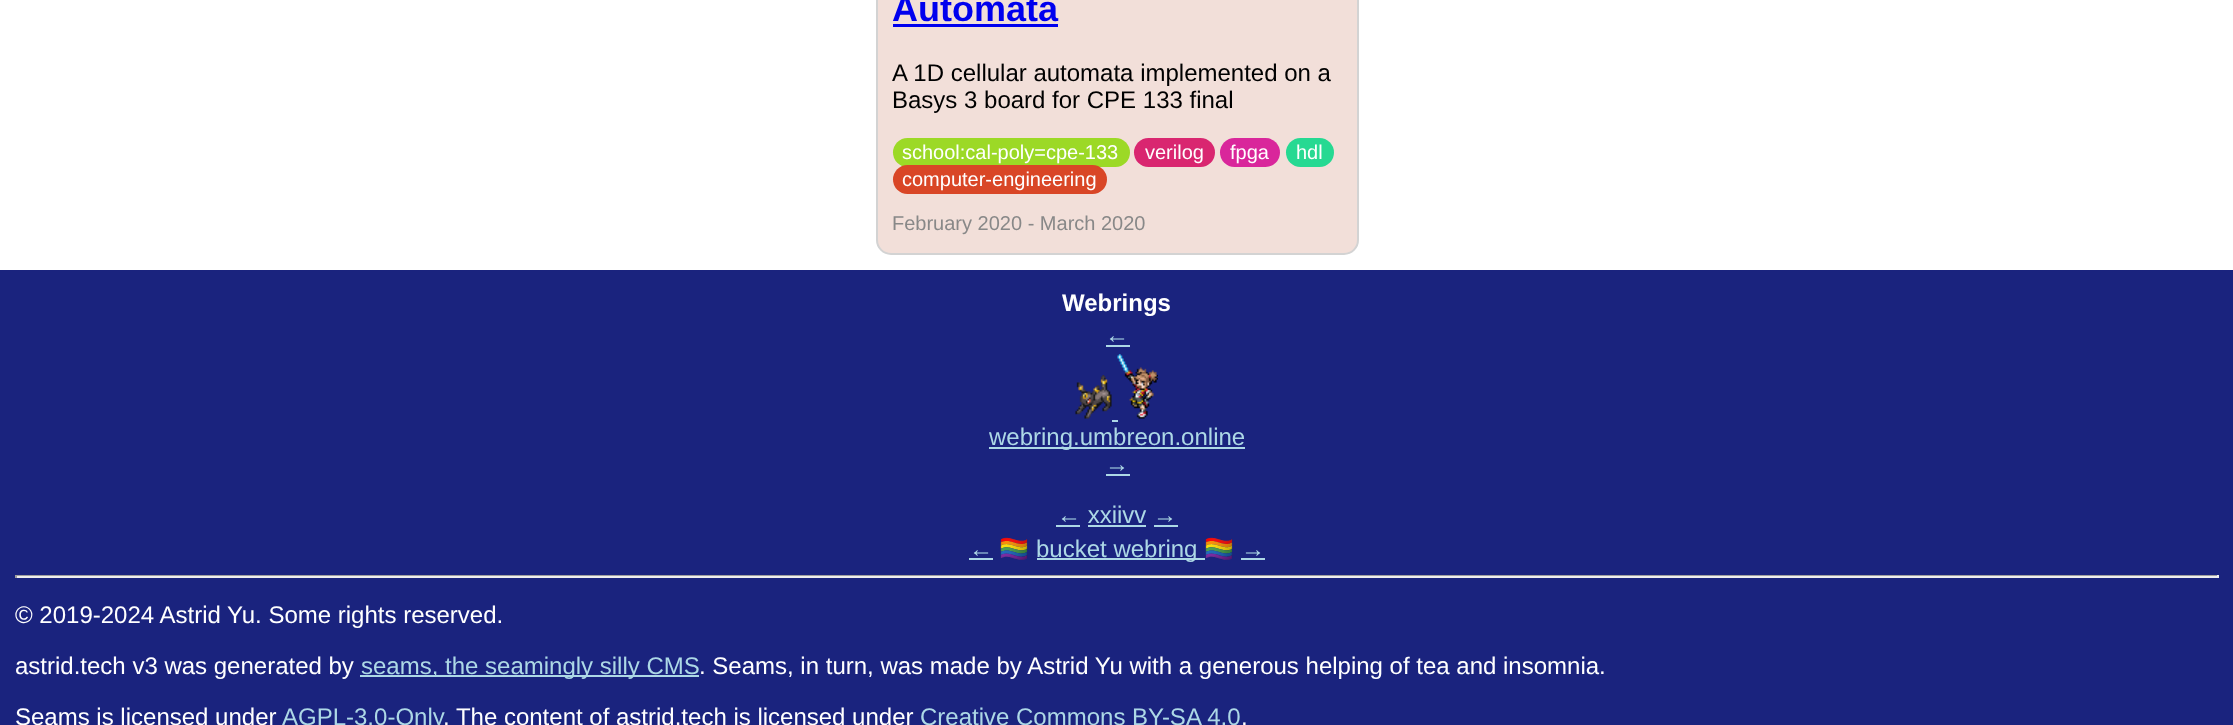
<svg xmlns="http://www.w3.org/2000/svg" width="2233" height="725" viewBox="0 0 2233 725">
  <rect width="100%" height="100%" fill="#fff"/>
  <rect x="877" y="-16" width="481" height="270" rx="14" fill="#f2dfd9" stroke="#d3d3d3" stroke-width="2"/>
  <path d="M893 24h165v3H893z" fill="#00e"/>
  <rect x="893" y="138" width="237" height="29" rx="14.5" fill="#9cd926"/>
  <rect x="1134" y="138" width="81" height="29" rx="14.5" fill="#d92670"/>
  <rect x="1220" y="138" width="60" height="29" rx="14.5" fill="#d9269b"/>
  <rect x="1286" y="138" width="48" height="29" rx="14.5" fill="#26d992"/>
  <rect x="893" y="165" width="214" height="29" rx="14.5" fill="#d94626"/>
  <path d="M0 270h2233v455H0z" fill="#1a237e"/>
  <path d="M1106 345h24v2H1106z" fill="#add8e6"/>
  <image x="1075" y="375" width="37" height="44" href="img/1.png"/>
  <image x="1117" y="354" width="41" height="65" href="img/2.png"/>
  <path d="M1112 420h6v2H1112z" fill="#add8e6"/>
  <path d="M989 447h256v2H989z" fill="#add8e6"/>
  <path d="M1106 474h24v2H1106z" fill="#add8e6"/>
  <path d="M1056 525h24v2H1056z" fill="#add8e6"/>
  <path d="M1088 525h58v2H1088z" fill="#add8e6"/>
  <path d="M1154 525h24v2H1154z" fill="#add8e6"/>
  <path d="M969 558h24v2H969z" fill="#add8e6"/>
  <path d="M1037 558h168v2H1037z" fill="#add8e6"/>
  <path d="M1241 558h24v2H1241z" fill="#add8e6"/>
  <path d="M15 575h2204v1H15z" fill="#9f9f9f"/>
  <path d="M2217 575h2v3H2217z" fill="#eee"/>
  <path d="M15 576h2204v2H15z" fill="#eee"/>
  <path d="M15 575h2v3H15z" fill="#9f9f9f"/>
  <path d="M360 675h339v2H360z" fill="#add8e6"/>
  <text x="892" y="21" font-family="Liberation Sans" font-size="36" font-weight="bold" fill="#00e">Automata</text>
  <g font-family="Liberation Sans" font-size="24" fill="#000">
    <text x="892" y="81">A 1D cellular automata implemented on a</text>
    <text x="892" y="108">Basys 3 board for CPE 133 final</text>
  </g>
  <g font-family="Liberation Sans" font-size="20" fill="#fff">
    <text x="902" y="159">school:cal-poly=cpe-133</text>
    <text x="1145" y="159">verilog</text>
    <text x="1230" y="159">fpga</text>
    <text x="1296" y="159">hdl</text>
    <text x="902" y="186">computer-engineering</text>
  </g>
  <text x="892" y="230" font-family="Liberation Sans" font-size="20" fill="#888">February 2020 - March 2020</text>
  <text x="1062" y="311" font-family="Liberation Sans" font-size="24" font-weight="bold" fill="#fff">Webrings</text>
  <g font-family="Liberation Sans" font-size="24" fill="#add8e6">
    <text x="1105" y="343">←</text>
    <text x="989" y="445">webring.umbreon.online</text>
    <text x="1105" y="472">→</text>
    <text x="1057" y="523">← xxiivv →</text>
    <text x="969" y="557">←</text>
  </g>
  <text x="999" y="557" font-family="Noto Color Emoji" font-size="24" fill="#fff">🏳️‍🌈</text>
  <text x="1036" y="557" font-family="Liberation Sans" font-size="24" fill="#add8e6">bucket webring</text>
  <text x="1204" y="557" font-family="Noto Color Emoji" font-size="24" fill="#fff">🏳️‍🌈</text>
  <text x="1241" y="557" font-family="Liberation Sans" font-size="24" fill="#add8e6">→</text>
  <g font-family="Liberation Sans" font-size="24" fill="#fff">
    <text x="15" y="623">© 2019-2024 Astrid Yu. Some rights reserved.</text>
    <text x="15" y="674">astrid.tech v3 was generated by</text>
  </g>
  <text x="361" y="674" font-family="Liberation Sans" font-size="24" fill="#add8e6">seams, the seamingly silly CMS</text>
  <g font-family="Liberation Sans" font-size="24" fill="#fff">
    <text x="699" y="674">. Seams, in turn, was made by Astrid Yu with a generous helping of tea and insomnia.</text>
    <text x="15" y="725">Seams is licensed under</text>
  </g>
  <text x="282" y="725" font-family="Liberation Sans" font-size="24" fill="#add8e6">AGPL-3.0-Only</text>
  <text x="443" y="725" font-family="Liberation Sans" font-size="24" fill="#fff">. The content of astrid.tech is licensed under</text>
  <text x="920" y="725" font-family="Liberation Sans" font-size="24" fill="#add8e6">Creative Commons BY-SA 4.0</text>
  <text x="1241" y="725" font-family="Liberation Sans" font-size="24" fill="#fff">.</text>
</svg>
